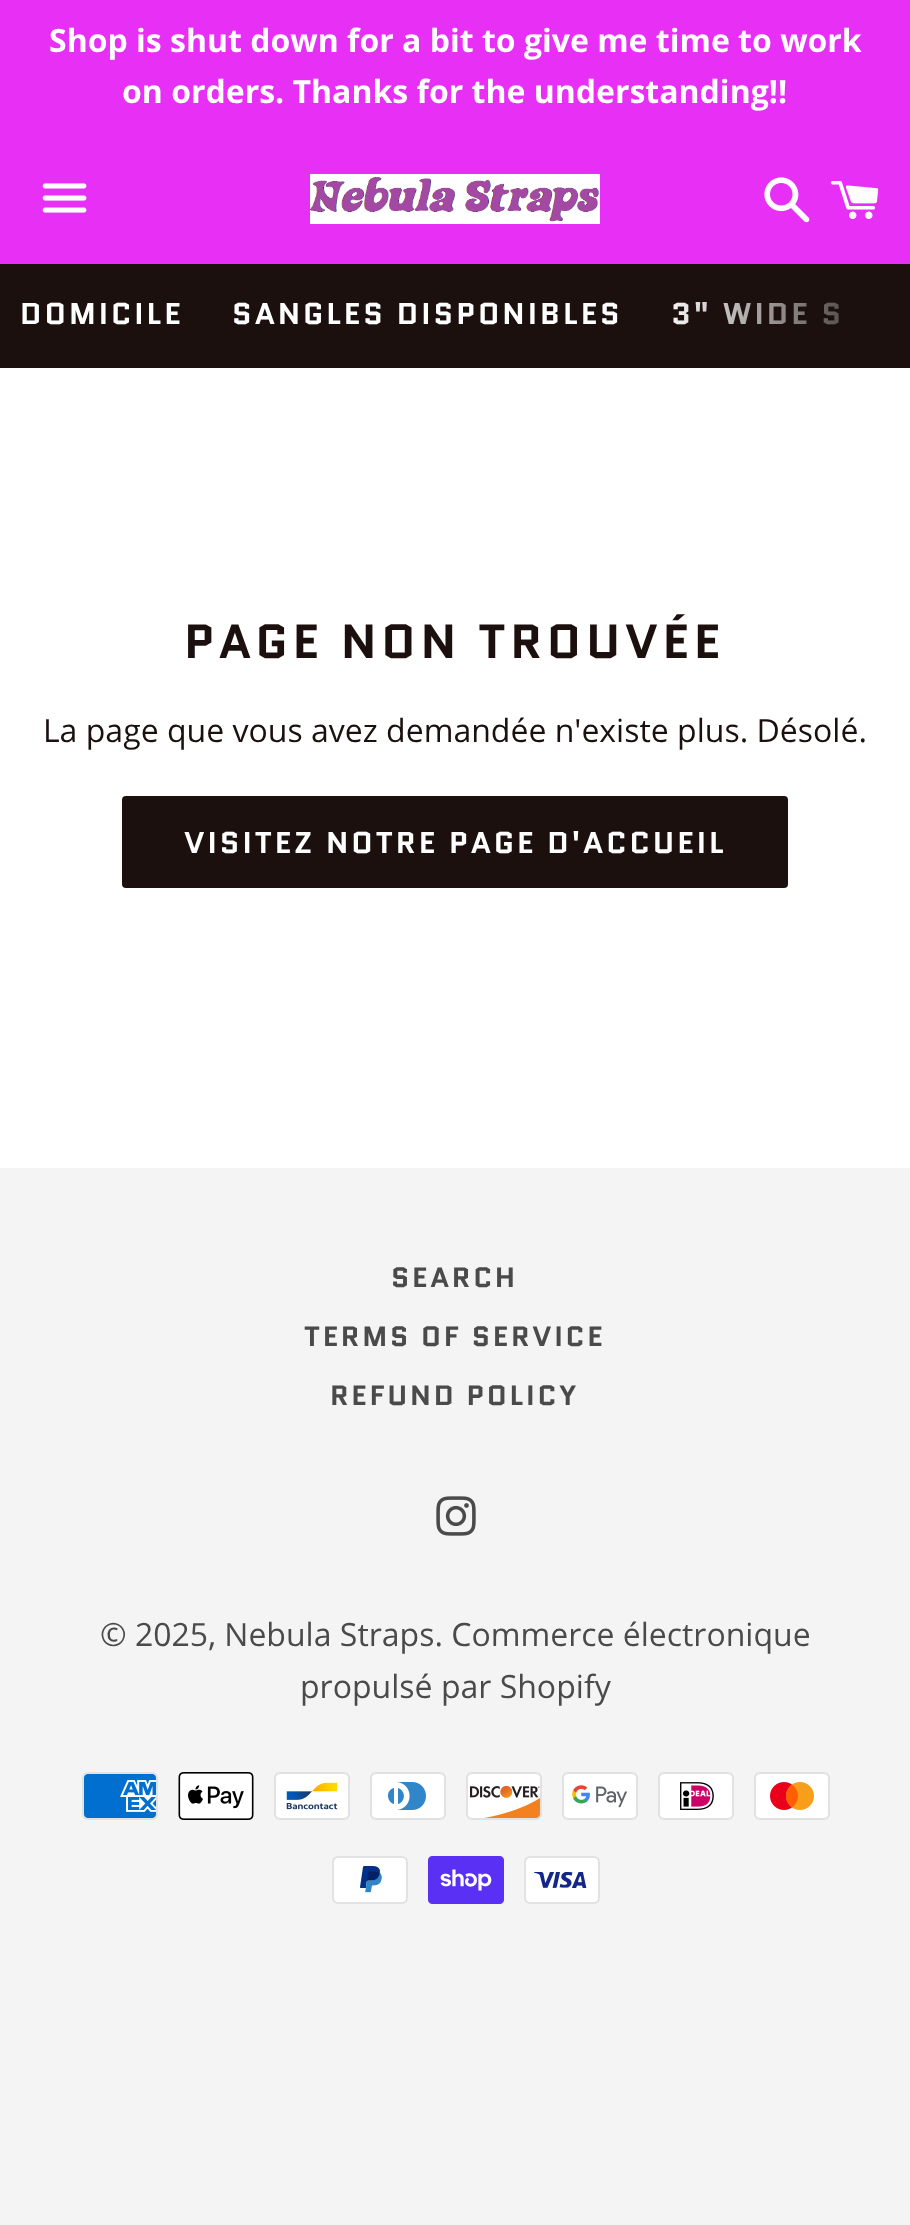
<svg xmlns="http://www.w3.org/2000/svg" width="910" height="2225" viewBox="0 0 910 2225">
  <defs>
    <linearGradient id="g1" gradientUnits="userSpaceOnUse" x1="660" y1="316" x2="910" y2="316"><stop offset="0" stop-color="#1b100e" stop-opacity="0"/><stop offset="1" stop-color="#1b100e"/></linearGradient>
  </defs>
  <rect width="100%" height="100%" fill="#f4f4f4"/>
  <path d="M0 368h910v800H0z" fill="#fff"/>
  <path d="M0 0h910v264H0z" fill="#e72ff6"/>
  <image x="42" y="183" width="45" height="30" href="img/1.png"/>
  <image x="310" y="174" width="290" height="50" href="img/2.png"/>
  <image x="764" y="177" width="46" height="46" href="img/3.png"/>
  <image x="830" y="181" width="49" height="38" href="img/4.png"/>
  <path d="M0 264h909v104H0z" fill="#1b100e"/>
  <rect x="122" y="796" width="666" height="92" rx="4" fill="#1b100e"/>
  <image x="436" y="1496" width="40" height="40" href="img/5.png"/>
  <image x="82" y="1772" width="76" height="48" href="img/6.png"/>
  <image x="178" y="1772" width="76" height="48" href="img/7.png"/>
  <image x="274" y="1772" width="76" height="48" href="img/8.png"/>
  <image x="370" y="1772" width="76" height="48" href="img/9.png"/>
  <image x="466" y="1772" width="76" height="48" href="img/10.png"/>
  <image x="562" y="1772" width="76" height="48" href="img/11.png"/>
  <image x="658" y="1772" width="76" height="48" href="img/12.png"/>
  <image x="754" y="1772" width="76" height="48" href="img/13.png"/>
  <image x="332" y="1856" width="76" height="48" href="img/14.png"/>
  <image x="428" y="1856" width="76" height="48" href="img/15.png"/>
  <image x="524" y="1856" width="76" height="48" href="img/16.png"/>
  <g font-family="Open Sans" font-size="32" font-weight="bold" fill="#fff">
    <text x="49" y="52">Shop is shut down for a bit to give me time to work</text>
    <text x="122" y="103">on orders. Thanks for the understanding!!</text>
  </g>
  <g font-family="Quantico" font-size="30" font-weight="bold" letter-spacing="3" fill="#fff">
    <text x="20" y="324">DOMICILE</text>
    <text x="232" y="324">SANGLES DISPONIBLES</text>
    <text x="671" y="324">3" WIDE S</text>
  </g>
  <path d="M673 264h237v104H673z" fill="url(#g1)"/>
  <text x="184" y="658" font-family="Quantico" font-size="48" font-weight="bold" letter-spacing="4.75" fill="#1b100e">PAGE NON TROUVÉE</text>
  <text x="43" y="742" font-family="Open Sans" font-size="32" fill="#1b100e">La page que vous avez demandée n'existe plus. Désolé.</text>
  <text x="184" y="853" font-family="Quantico" font-size="30" font-weight="bold" letter-spacing="3" fill="#fff">VISITEZ NOTRE PAGE D'ACCUEIL</text>
  <g font-family="Quantico" font-size="28" font-weight="bold" letter-spacing="2.75" fill="#4a4a4a">
    <text x="391" y="1287">SEARCH</text>
    <text x="304" y="1346">TERMS OF SERVICE</text>
    <text x="330" y="1405">REFUND POLICY</text>
  </g>
  <g font-family="Open Sans" font-size="32" fill="#4a4a4a">
    <text x="100" y="1646">© 2025, Nebula Straps. Commerce électronique</text>
    <text x="300" y="1698">propulsé par Shopify</text>
  </g>
</svg>
